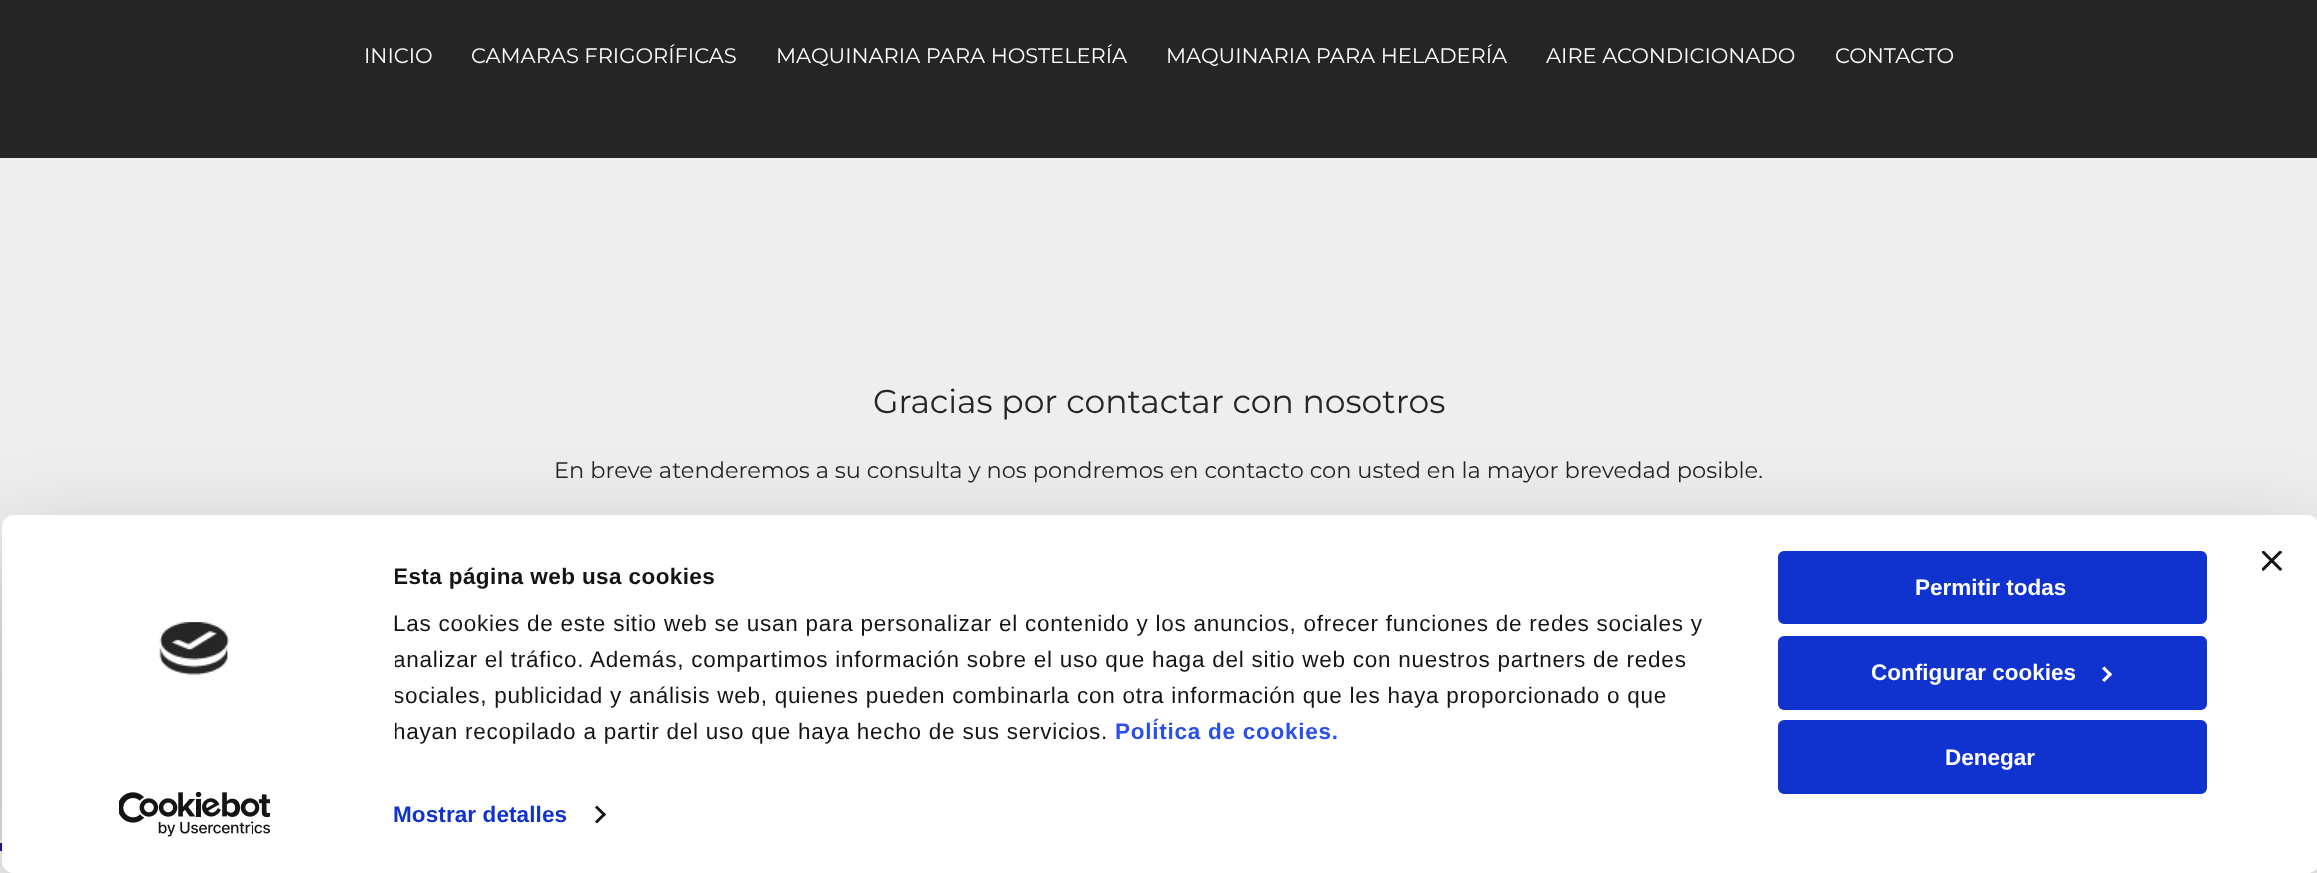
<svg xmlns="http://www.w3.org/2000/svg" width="2317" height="873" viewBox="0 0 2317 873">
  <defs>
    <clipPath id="clip1"><path d="M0 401H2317V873H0ZM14 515H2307C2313.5 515 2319 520.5 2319 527V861C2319 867.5 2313.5 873 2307 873H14C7.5 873 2 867.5 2 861V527C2 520.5 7.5 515 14 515Z" clip-rule="evenodd"/></clipPath>
    <clipPath id="clip2"><path d="M395 560h1339v190H395z"/></clipPath>
  </defs>
  <rect width="100%" height="100%" fill="#252525"/>
  <path d="M0 840h2v3H0z" fill="#fff"/>
  <path d="M0 158h2317v682H0z" fill="#eee"/>
  <path d="M0 851h2317v22H0z" fill="#fff"/>
  <path d="M0 843h2v8H0z" fill="#2d0eb1"/>
  <g clip-path="url(#clip1)">
    <rect x="2" y="560" width="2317" height="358" rx="12" fill="#0000004d" filter="blur(52.5px)"/>
  </g>
  <rect x="2" y="515" width="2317" height="358" rx="12" fill="#fff"/>
  <image x="2262" y="551" width="21" height="20" href="img/1.png"/>
  <image x="159" y="622" width="70" height="53" href="img/2.png"/>
  <image x="119" y="792" width="151" height="45" href="img/3.png"/>
  <path d="M597 805.5L606 814.5L604 816.5L595 807.5Z" fill="#141414"/>
  <path d="M604 812.5L606 814.5L597 823.5L595 821.5Z" fill="#141414"/>
  <rect x="1779.5" y="552.5" width="426" height="70" rx="4.5" fill="#1032cf" stroke="#1032cf" stroke-width="3"/>
  <rect x="1779.5" y="637.5" width="426" height="71" rx="4.5" fill="#1032cf" stroke="#1032cf" stroke-width="3"/>
  <path d="M2104.5 666.5L2112 674.5L2110 676.5L2102 668.5Z" fill="#fff"/>
  <path d="M2110 672L2112 674.5L2104.5 682L2102 680Z" fill="#fff"/>
  <rect x="1779.5" y="721.5" width="426" height="71" rx="4.5" fill="#1032cf" stroke="#1032cf" stroke-width="3"/>
  <g font-family="Montserrat" font-size="21" font-weight="100" fill="#fff">
    <text x="364" y="63">INICIO</text>
    <text x="471" y="63">CAMARAS FRIGORÍFICAS</text>
    <text x="776" y="63">MAQUINARIA PARA HOSTELERÍA</text>
    <text x="1166" y="63">MAQUINARIA PARA HELADERÍA</text>
    <text x="1546" y="63">AIRE ACONDICIONADO</text>
    <text x="1835" y="63">CONTACTO</text>
  </g>
  <text x="873" y="413" font-family="Montserrat" font-size="33" font-weight="100" fill="#252525">Gracias por contactar con nosotros</text>
  <text x="554" y="478" font-family="Montserrat" font-size="22.5" font-weight="100" fill="#252525">En breve atenderemos a su consulta y nos pondremos en contacto con usted en la mayor brevedad posible.</text>
  <g clip-path="url(#clip2)">
    <text x="393" y="584" font-family="Liberation Sans" font-size="22.5" font-weight="bold" letter-spacing="0.4" fill="#141414">Esta página web usa cookies</text>
  </g>
  <text x="393" y="631" font-family="Liberation Sans" font-size="22.5" letter-spacing="0.75" fill="#141414">Las cookies de este sitio web se usan para personalizar el contenido y los anuncios, ofrecer funciones de redes sociales y</text>
  <g clip-path="url(#clip2)">
    <g font-family="Liberation Sans" font-size="22.5" letter-spacing="0.75" fill="#141414">
      <text x="393" y="667">analizar el tráfico. Además, compartimos información sobre el uso que haga del sitio web con nuestros partners de redes</text>
      <text x="393" y="703">sociales, publicidad y análisis web, quienes pueden combinarla con otra información que les haya proporcionado o que</text>
      <text x="393" y="739">hayan recopilado a partir del uso que haya hecho de sus servicios.</text>
    </g>
  </g>
  <text x="1115" y="739" font-family="Liberation Sans" font-size="22.5" font-weight="bold" letter-spacing="0.75" fill="#2a4eef">Política de cookies.</text>
  <text x="393" y="822" font-family="Liberation Sans" font-size="22.5" font-weight="bold" letter-spacing="0.1" fill="#1032cf">Mostrar detalles</text>
  <g font-family="Liberation Sans" font-size="22.5" font-weight="bold" fill="#fff">
    <text x="1915" y="595">Permitir todas</text>
    <text x="1871" y="680">Configurar cookies</text>
    <text x="1945" y="765">Denegar</text>
  </g>
</svg>
